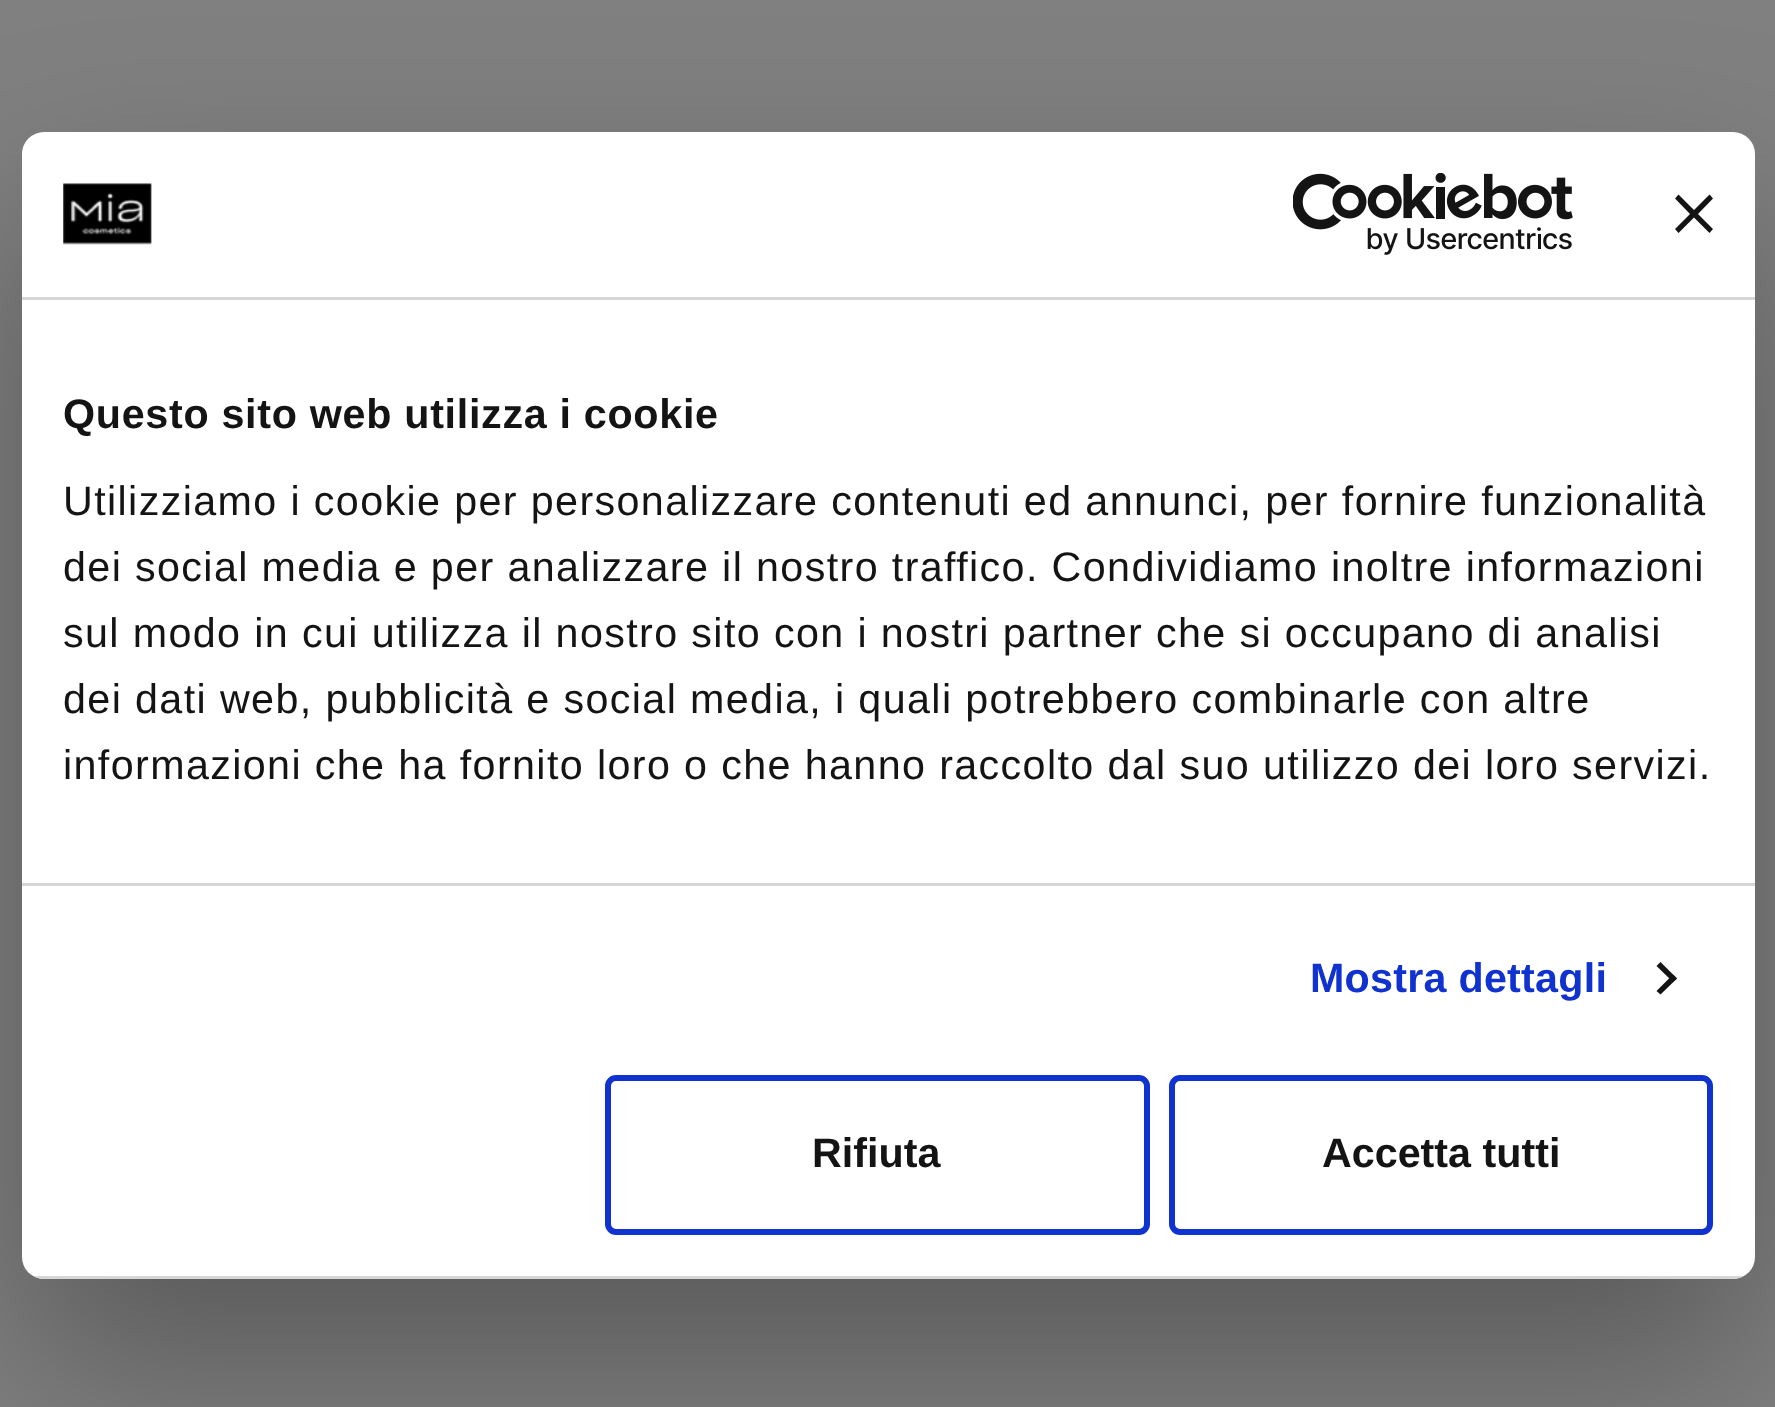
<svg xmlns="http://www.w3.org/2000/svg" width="1775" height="1407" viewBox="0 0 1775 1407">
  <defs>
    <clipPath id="clip1"><rect x="22" y="132" width="1733" height="1147" rx="22"/></clipPath>
  </defs>
  <rect width="100%" height="100%" fill="#808080"/>
  <rect x="22" y="220" width="1733" height="1147" rx="22" fill="#0000004d" filter="blur(93.5px)"/>
  <rect x="22" y="132" width="1733" height="1147" rx="22" fill="#fff"/>
  <path d="M22 297h1733v3H22z" fill="#d6d6d6"/>
  <image x="63" y="183" width="89" height="62" href="img/1.png"/>
  <image x="1293" y="173" width="280" height="82" href="img/2.png"/>
  <path d="M1713 198.5L1709.5 194.5L1694 210L1678.5 194.5L1675 198.5L1690 214L1675 229L1678.5 233L1694 217.5L1709.5 233L1713 229L1698 214Z" fill="#141414"/>
  <path d="M22 883h1733v3H22z" fill="#d6d6d6"/>
  <path d="M1660.5 962L1677 978.5L1673 982L1656.5 966Z" fill="#141414"/>
  <path d="M1673 974.5L1677 978.5L1660.5 994.5L1656.5 991Z" fill="#141414"/>
  <g clip-path="url(#clip1)">
    <path d="M33 1276h1711v3H33z" fill="#d6d6d6"/>
  </g>
  <rect x="608" y="1078" width="539" height="154" rx="8" fill="none" stroke="#1032cf" stroke-width="6"/>
  <rect x="1172" y="1078" width="538" height="154" rx="8" fill="none" stroke="#1032cf" stroke-width="6"/>
  <text x="63" y="428" font-family="Liberation Sans" font-size="41.25" font-weight="bold" letter-spacing="0.7" fill="#141414">Questo sito web utilizza i cookie</text>
  <g font-family="Liberation Sans" font-size="41.25" letter-spacing="1.38" fill="#141414">
    <text x="63" y="515">Utilizziamo i cookie per personalizzare contenuti ed annunci, per fornire funzionalità</text>
    <text x="63" y="581">dei social media e per analizzare il nostro traffico. Condividiamo inoltre informazioni</text>
    <text x="63" y="647">sul modo in cui utilizza il nostro sito con i nostri partner che si occupano di analisi</text>
    <text x="63" y="713">dei dati web, pubblicità e social media, i quali potrebbero combinarle con altre</text>
    <text x="63" y="779">informazioni che ha fornito loro o che hanno raccolto dal suo utilizzo dei loro servizi.</text>
  </g>
  <text x="1310" y="992" font-family="Liberation Sans" font-size="41.25" font-weight="bold" letter-spacing="0.25" fill="#1032cf">Mostra dettagli</text>
  <g font-family="Liberation Sans" font-size="41.25" font-weight="bold" fill="#141414">
    <text x="812" y="1167">Rifiuta</text>
    <text x="1322" y="1167">Accetta tutti</text>
  </g>
</svg>
